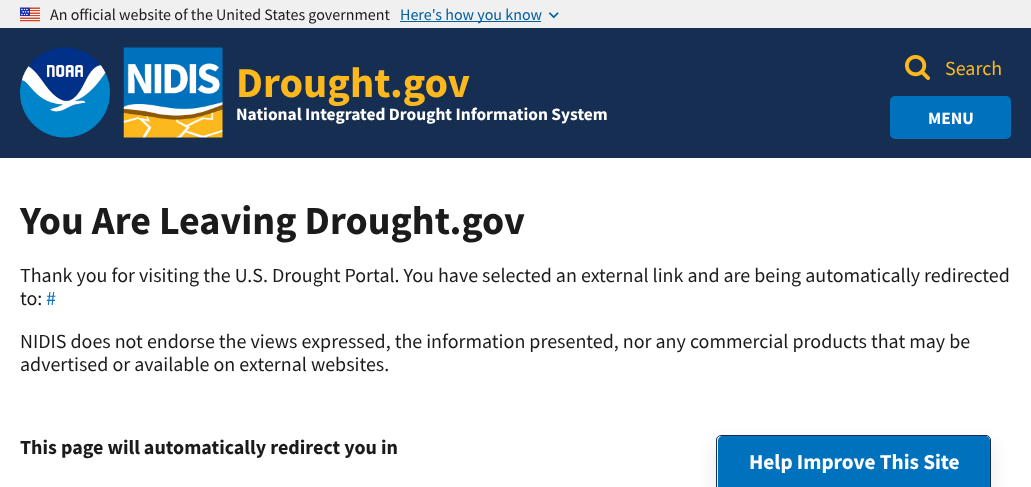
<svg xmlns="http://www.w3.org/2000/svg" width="1031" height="487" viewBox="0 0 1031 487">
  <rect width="100%" height="100%" fill="#fff"/>
  <path d="M0 0h1031v28H0z" fill="#f0f0f0"/>
  <image x="20" y="7" width="20" height="15" href="img/1.png"/>
  <path d="M400 21h141v1H400z" fill="#005ea2"/>
  <image x="548" y="12" width="11" height="7" href="img/2.png"/>
  <path d="M0 28h1031v130H0z" fill="#162e51"/>
  <image x="904" y="54" width="26" height="26" href="img/3.png"/>
  <image x="20" y="47" width="90" height="91" href="img/4.png"/>
  <image x="123" y="47" width="100" height="91" href="img/5.png"/>
  <rect x="891.5" y="97.5" width="118" height="40" rx="3.5" fill="#0071bc" stroke="#0071bc" stroke-width="3"/>
  <rect x="716" y="445" width="275" height="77" rx="5" fill="#0000001a" filter="blur(10px)"/>
  <path d="M721 435.5H986C988.5 435.5 990.5 437.5 990.5 440V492.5H716.5V440C716.5 437.5 718.5 435.5 721 435.5Z" fill="none" stroke="#162e51"/>
  <path d="M723 436H985C988 436 990 438 990 441V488H718V441C718 438 720 436 723 436Z" fill="#0071bc"/>
  <text x="50" y="20" font-family="Source Sans Pro" font-size="16" fill="#1b1b1b">An official website of the United States government</text>
  <text x="400" y="20" font-family="Source Sans Pro" font-size="16" fill="#005ea2">Here's how you know</text>
  <text x="945" y="75" font-family="Source Sans Pro" font-size="20" fill="#fdb81e">Search</text>
  <text x="236" y="97" font-family="Source Sans Pro" font-size="42.5" font-weight="bold" fill="#fdb81e">Drought.gov</text>
  <g font-family="Source Sans Pro" font-size="17.4" font-weight="bold" fill="#fff">
    <text x="236" y="120">National Integrated Drought Information System</text>
    <text x="928" y="124">MENU</text>
  </g>
  <text x="20" y="234" font-family="Source Sans Pro" font-size="40" font-weight="bold" fill="#1b1b1b">You Are Leaving Drought.gov</text>
  <g font-family="Source Sans Pro" font-size="20" fill="#1b1b1b">
    <text x="20" y="282">Thank you for visiting the U.S. Drought Portal. You have selected an external link and are being automatically redirected</text>
    <text x="20" y="305">to:</text>
  </g>
  <text x="46" y="305" font-family="Source Sans Pro" font-size="20" fill="#0071bc">#</text>
  <g font-family="Source Sans Pro" font-size="20" fill="#1b1b1b">
    <text x="20" y="348">NIDIS does not endorse the views expressed, the information presented, nor any commercial products that may be</text>
    <text x="20" y="371">advertised or available on external websites.</text>
  </g>
  <text x="20" y="454" font-family="Source Sans Pro" font-size="20" font-weight="bold" fill="#1b1b1b">This page will automatically redirect you in</text>
  <text x="749" y="469" font-family="Source Sans Pro" font-size="21.25" font-weight="bold" fill="#fff">Help Improve This Site</text>
</svg>
